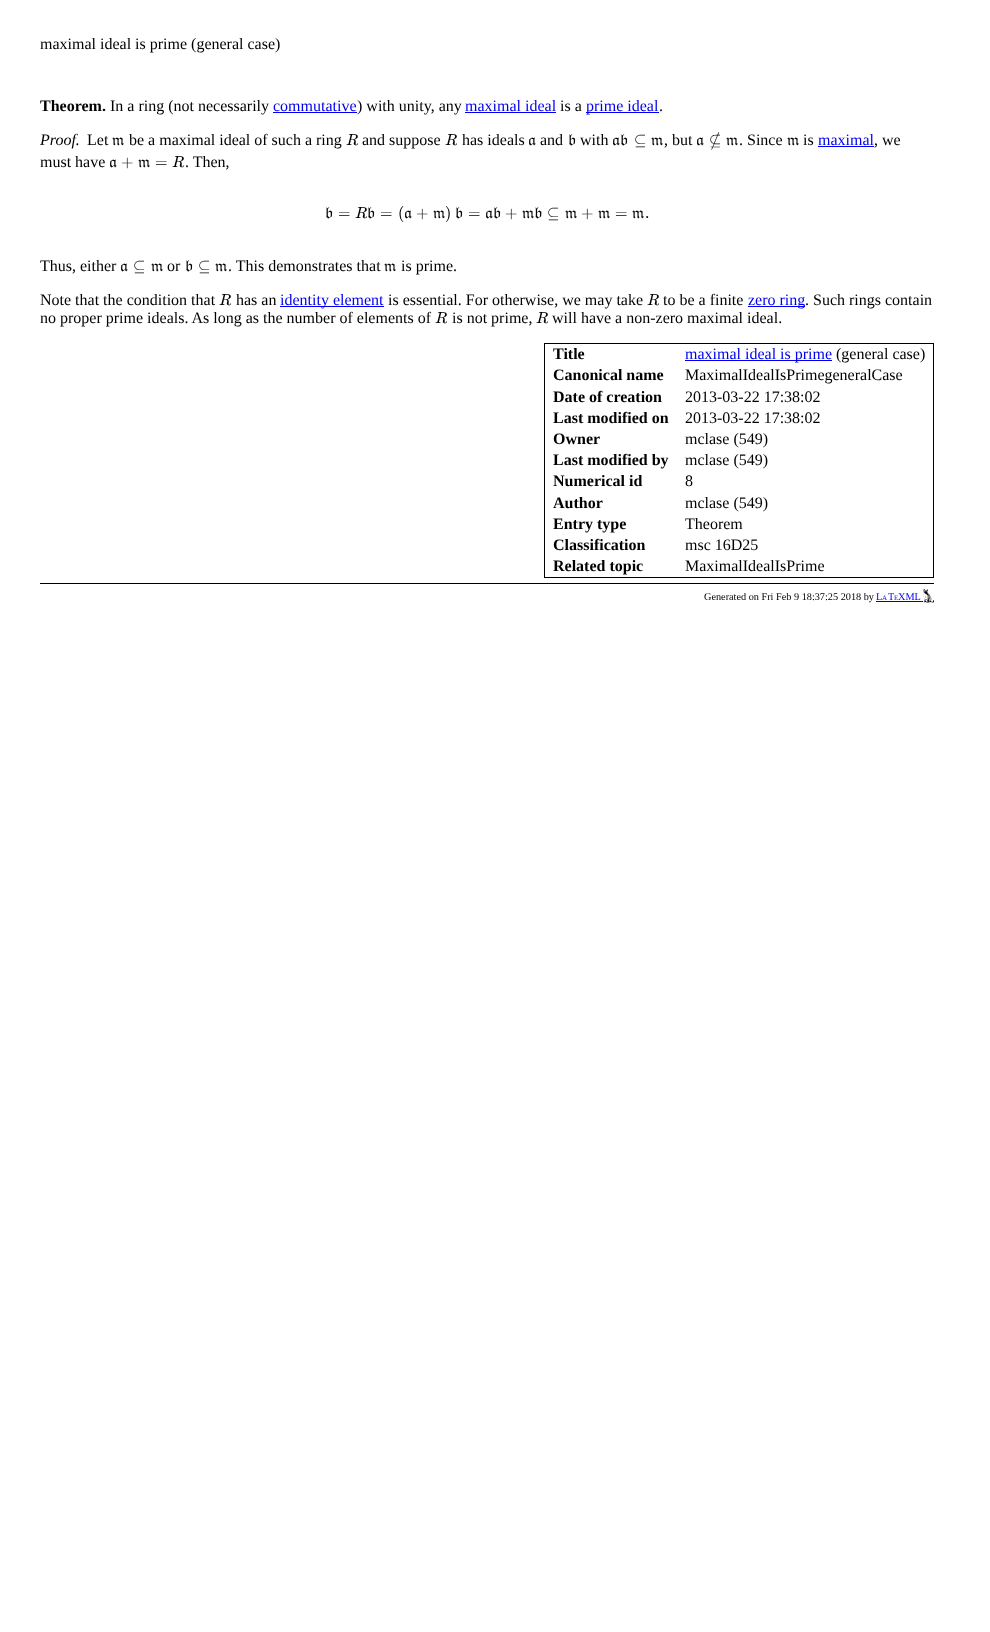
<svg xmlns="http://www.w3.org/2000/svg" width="990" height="1632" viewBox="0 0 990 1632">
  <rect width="100%" height="100%" fill="#fff"/>
  <path d="M273 112h84v1H273z" fill="#00e"/>
  <path d="M465 112h91v1H465z" fill="#00e"/>
  <path d="M586 112h73v1H586z" fill="#00e"/>
  <path d="M818 146h56v1H818z" fill="#00e"/>
  <path d="M280 306h104v1H280z" fill="#00e"/>
  <path d="M748 306h57v1H748z" fill="#00e"/>
  <path d="M544 343h390v1H544z" fill="#000"/>
  <path d="M933 364h1v214H933z" fill="#000"/>
  <path d="M544 577h390v1H544z" fill="#000"/>
  <path d="M544 364h1v214H544z" fill="#000"/>
  <path d="M544 343h1v22H544z" fill="#000"/>
  <path d="M933 343h1v22H933z" fill="#000"/>
  <path d="M685 360h147v1H685z" fill="#00e"/>
  <path d="M40 583h894v1H40z" fill="#000"/>
  <path d="M876 601h47v1H876z" fill="#00e"/>
  <image x="923" y="589" width="11" height="14" href="img/1.png"/>
  <text x="40" y="49" font-family="Liberation Serif" font-size="16" fill="#000">maximal ideal is prime (general case)</text>
  <text x="40" y="111" font-family="Liberation Serif" font-size="16" font-weight="bold" fill="#000">Theorem.</text>
  <text x="110" y="111" font-family="Liberation Serif" font-size="16" fill="#000">In a ring (not necessarily</text>
  <text x="273" y="111" font-family="Liberation Serif" font-size="16" fill="#00e">commutative</text>
  <text x="357" y="111" font-family="Liberation Serif" font-size="16" fill="#000">) with unity, any</text>
  <text x="465" y="111" font-family="Liberation Serif" font-size="16" fill="#00e">maximal ideal</text>
  <text x="560" y="111" font-family="Liberation Serif" font-size="16" fill="#000">is a</text>
  <text x="586" y="111" font-family="Liberation Serif" font-size="16" fill="#00e">prime ideal</text>
  <text x="659" y="111" font-family="Liberation Serif" font-size="16" fill="#000">.</text>
  <text x="40" y="145" font-family="Liberation Serif" font-size="16" font-style="italic" fill="#000">Proof.</text>
  <text x="87" y="145" font-family="Liberation Serif" font-size="16" fill="#000">Let</text>
  <text x="112" y="145" font-family="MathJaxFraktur" font-size="16" fill="#000">m</text>
  <text x="129" y="145" font-family="Liberation Serif" font-size="16" fill="#000">be a maximal ideal of such a ring</text>
  <text x="346" y="145" font-family="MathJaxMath" font-size="16" font-style="italic" fill="#000">R</text>
  <text x="362" y="145" font-family="Liberation Serif" font-size="16" fill="#000">and suppose</text>
  <text x="445" y="145" font-family="MathJaxMath" font-size="16" font-style="italic" fill="#000">R</text>
  <text x="462" y="145" font-family="Liberation Serif" font-size="16" fill="#000">has ideals</text>
  <text x="528" y="145" font-family="MathJaxFraktur" font-size="16" fill="#000">a</text>
  <text x="540" y="145" font-family="Liberation Serif" font-size="16" fill="#000">and</text>
  <text x="568" y="145" font-family="MathJaxFraktur" font-size="16" fill="#000">b</text>
  <text x="580" y="145" font-family="Liberation Serif" font-size="16" fill="#000">with</text>
  <text x="612" y="145" font-family="MathJaxFraktur" font-size="16" fill="#000">ab</text>
  <text x="634" y="145" font-family="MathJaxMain" font-size="16" fill="#000">⊆</text>
  <text x="651" y="145" font-family="MathJaxFraktur" font-size="16" fill="#000">m</text>
  <text x="664" y="145" font-family="Liberation Serif" font-size="16" fill="#000">, but</text>
  <text x="696" y="145" font-family="MathJaxFraktur" font-size="16" fill="#000">a</text>
  <text x="709" y="145" font-family="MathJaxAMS" font-size="16" fill="#000">⊈</text>
  <text x="726" y="145" font-family="MathJaxFraktur" font-size="16" fill="#000">m</text>
  <text x="739" y="145" font-family="Liberation Serif" font-size="16" fill="#000">. Since</text>
  <text x="787" y="145" font-family="MathJaxFraktur" font-size="16" fill="#000">m</text>
  <text x="803" y="145" font-family="Liberation Serif" font-size="16" fill="#000">is</text>
  <text x="818" y="145" font-family="Liberation Serif" font-size="16" fill="#00e">maximal</text>
  <g font-family="Liberation Serif" font-size="16" fill="#000">
    <text x="874" y="145">, we</text>
    <text x="40" y="167">must have</text>
  </g>
  <text x="109" y="167" font-family="MathJaxFraktur" font-size="16" fill="#000">a</text>
  <text x="121" y="167" font-family="MathJaxMain" font-size="16" fill="#000">+</text>
  <text x="138" y="167" font-family="MathJaxFraktur" font-size="16" fill="#000">m</text>
  <text x="155" y="167" font-family="MathJaxMain" font-size="16" fill="#000">=</text>
  <text x="172" y="167" font-family="MathJaxMath" font-size="16" font-style="italic" fill="#000">R</text>
  <text x="185" y="167" font-family="Liberation Serif" font-size="16" fill="#000">. Then,</text>
  <text x="325" y="218" font-family="MathJaxFraktur" font-size="16" fill="#000">b</text>
  <text x="338" y="218" font-family="MathJaxMain" font-size="16" fill="#000">=</text>
  <text x="355" y="218" font-family="MathJaxMath" font-size="16" font-style="italic" fill="#000">R</text>
  <text x="367" y="218" font-family="MathJaxFraktur" font-size="16" fill="#000">b</text>
  <g font-family="MathJaxMain" font-size="16" fill="#000">
    <text x="380" y="218">=</text>
    <text x="398" y="218">(</text>
  </g>
  <text x="404" y="218" font-family="MathJaxFraktur" font-size="16" fill="#000">a</text>
  <text x="416" y="218" font-family="MathJaxMain" font-size="16" fill="#000">+</text>
  <text x="433" y="218" font-family="MathJaxFraktur" font-size="16" fill="#000">m</text>
  <text x="445" y="218" font-family="MathJaxMain" font-size="16" fill="#000">)</text>
  <text x="455" y="218" font-family="MathJaxFraktur" font-size="16" fill="#000">b</text>
  <text x="468" y="218" font-family="MathJaxMain" font-size="16" fill="#000">=</text>
  <text x="485" y="218" font-family="MathJaxFraktur" font-size="16" fill="#000">ab</text>
  <text x="505" y="218" font-family="MathJaxMain" font-size="16" fill="#000">+</text>
  <text x="522" y="218" font-family="MathJaxFraktur" font-size="16" fill="#000">mb</text>
  <text x="547" y="218" font-family="MathJaxMain" font-size="16" fill="#000">⊆</text>
  <text x="565" y="218" font-family="MathJaxFraktur" font-size="16" fill="#000">m</text>
  <text x="581" y="218" font-family="MathJaxMain" font-size="16" fill="#000">+</text>
  <text x="598" y="218" font-family="MathJaxFraktur" font-size="16" fill="#000">m</text>
  <text x="615" y="218" font-family="MathJaxMain" font-size="16" fill="#000">=</text>
  <text x="632" y="218" font-family="MathJaxFraktur" font-size="16" fill="#000">m</text>
  <text x="645" y="218" font-family="MathJaxMain" font-size="16" fill="#000">.</text>
  <text x="40" y="271" font-family="Liberation Serif" font-size="16" fill="#000">Thus, either</text>
  <text x="120" y="271" font-family="MathJaxFraktur" font-size="16" fill="#000">a</text>
  <text x="133" y="271" font-family="MathJaxMain" font-size="16" fill="#000">⊆</text>
  <text x="151" y="271" font-family="MathJaxFraktur" font-size="16" fill="#000">m</text>
  <text x="167" y="271" font-family="Liberation Serif" font-size="16" fill="#000">or</text>
  <text x="185" y="271" font-family="MathJaxFraktur" font-size="16" fill="#000">b</text>
  <text x="198" y="271" font-family="MathJaxMain" font-size="16" fill="#000">⊆</text>
  <text x="215" y="271" font-family="MathJaxFraktur" font-size="16" fill="#000">m</text>
  <text x="228" y="271" font-family="Liberation Serif" font-size="16" fill="#000">. This demonstrates that</text>
  <text x="384" y="271" font-family="MathJaxFraktur" font-size="16" fill="#000">m</text>
  <g font-family="Liberation Serif" font-size="16" fill="#000">
    <text x="401" y="271">is prime.</text>
    <text x="40" y="305">Note that the condition that</text>
  </g>
  <text x="219" y="305" font-family="MathJaxMath" font-size="16" font-style="italic" fill="#000">R</text>
  <text x="236" y="305" font-family="Liberation Serif" font-size="16" fill="#000">has an</text>
  <text x="280" y="305" font-family="Liberation Serif" font-size="16" fill="#00e">identity element</text>
  <text x="388" y="305" font-family="Liberation Serif" font-size="16" fill="#000">is essential. For otherwise, we may take</text>
  <text x="647" y="305" font-family="MathJaxMath" font-size="16" font-style="italic" fill="#000">R</text>
  <text x="663" y="305" font-family="Liberation Serif" font-size="16" fill="#000">to be a finite</text>
  <text x="748" y="305" font-family="Liberation Serif" font-size="16" fill="#00e">zero ring</text>
  <g font-family="Liberation Serif" font-size="16" fill="#000">
    <text x="805" y="305">. Such rings contain</text>
    <text x="40" y="323">no proper prime ideals. As long as the number of elements of</text>
  </g>
  <text x="435" y="323" font-family="MathJaxMath" font-size="16" font-style="italic" fill="#000">R</text>
  <text x="452" y="323" font-family="Liberation Serif" font-size="16" fill="#000">is not prime,</text>
  <text x="536" y="323" font-family="MathJaxMath" font-size="16" font-style="italic" fill="#000">R</text>
  <text x="552" y="323" font-family="Liberation Serif" font-size="16" fill="#000">will have a non-zero maximal ideal.</text>
  <text x="553" y="359" font-family="Liberation Serif" font-size="16" font-weight="bold" fill="#000">Title</text>
  <text x="685" y="359" font-family="Liberation Serif" font-size="16" fill="#00e">maximal ideal is prime</text>
  <text x="836" y="359" font-family="Liberation Serif" font-size="16" fill="#000">(general case)</text>
  <text x="553" y="380" font-family="Liberation Serif" font-size="16" font-weight="bold" fill="#000">Canonical name</text>
  <text x="685" y="380" font-family="Liberation Serif" font-size="16" fill="#000">MaximalIdealIsPrimegeneralCase</text>
  <text x="553" y="402" font-family="Liberation Serif" font-size="16" font-weight="bold" fill="#000">Date of creation</text>
  <text x="685" y="402" font-family="Liberation Serif" font-size="16" fill="#000">2013-03-22 17:38:02</text>
  <text x="553" y="423" font-family="Liberation Serif" font-size="16" font-weight="bold" fill="#000">Last modified on</text>
  <text x="685" y="423" font-family="Liberation Serif" font-size="16" fill="#000">2013-03-22 17:38:02</text>
  <text x="553" y="444" font-family="Liberation Serif" font-size="16" font-weight="bold" fill="#000">Owner</text>
  <text x="685" y="444" font-family="Liberation Serif" font-size="16" fill="#000">mclase (549)</text>
  <text x="553" y="465" font-family="Liberation Serif" font-size="16" font-weight="bold" fill="#000">Last modified by</text>
  <text x="685" y="465" font-family="Liberation Serif" font-size="16" fill="#000">mclase (549)</text>
  <text x="553" y="486" font-family="Liberation Serif" font-size="16" font-weight="bold" fill="#000">Numerical id</text>
  <text x="685" y="486" font-family="Liberation Serif" font-size="16" fill="#000">8</text>
  <text x="553" y="508" font-family="Liberation Serif" font-size="16" font-weight="bold" fill="#000">Author</text>
  <text x="685" y="508" font-family="Liberation Serif" font-size="16" fill="#000">mclase (549)</text>
  <text x="553" y="529" font-family="Liberation Serif" font-size="16" font-weight="bold" fill="#000">Entry type</text>
  <text x="685" y="529" font-family="Liberation Serif" font-size="16" fill="#000">Theorem</text>
  <text x="553" y="550" font-family="Liberation Serif" font-size="16" font-weight="bold" fill="#000">Classification</text>
  <text x="685" y="550" font-family="Liberation Serif" font-size="16" fill="#000">msc 16D25</text>
  <text x="553" y="571" font-family="Liberation Serif" font-size="16" font-weight="bold" fill="#000">Related topic</text>
  <text x="685" y="571" font-family="Liberation Serif" font-size="16" fill="#000">MaximalIdealIsPrime</text>
  <text x="704" y="600" font-family="Liberation Serif" font-size="10.25" fill="#000">Generated on Fri Feb 9 18:37:25 2018 by</text>
  <text x="876" y="600" font-family="Liberation Serif" font-size="10.25" fill="#00e">L</text>
  <text x="882" y="600" font-family="Liberation Serif" font-size="7" fill="#00e">A</text>
  <text x="888" y="600" font-family="Liberation Serif" font-size="10.25" fill="#00e">T</text>
  <text x="894" y="600" font-family="Liberation Serif" font-size="7" fill="#00e">E</text>
  <text x="898" y="600" font-family="Liberation Serif" font-size="10.25" fill="#00e">XML</text>
</svg>
